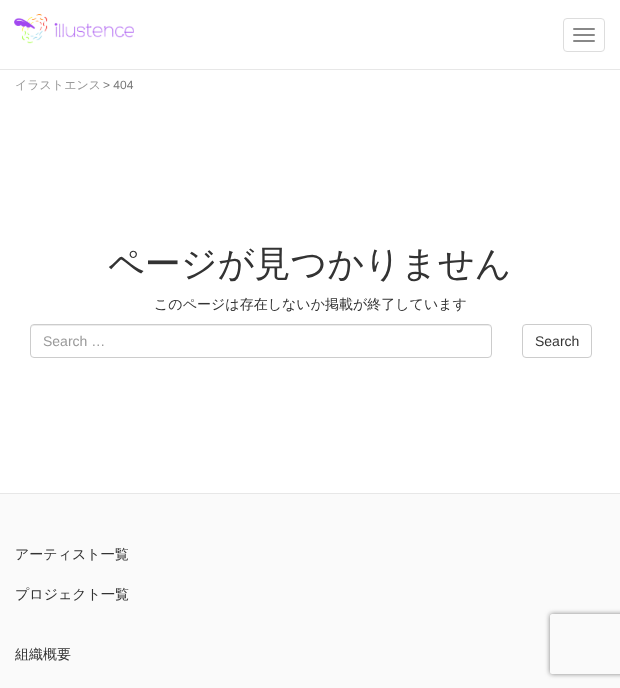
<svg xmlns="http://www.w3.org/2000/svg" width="620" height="688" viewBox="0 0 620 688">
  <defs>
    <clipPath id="clip1"><path d="M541 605H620V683H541ZM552 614H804C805 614 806 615 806 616V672C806 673 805 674 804 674H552C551 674 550 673 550 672V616C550 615 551 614 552 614Z" clip-rule="evenodd"/></clipPath>
  </defs>
  <rect width="100%" height="100%" fill="#fff"/>
  <path d="M0 69h620v1H0z" fill="#e7e7e7"/>
  <image x="14" y="14" width="120" height="30" href="img/1.png"/>
  <rect x="563.5" y="18.5" width="41" height="33" rx="3.5" fill="none" stroke="#ddd"/>
  <rect x="573" y="28" width="22" height="2" rx="1" fill="#888"/>
  <rect x="573" y="34" width="22" height="2" rx="1" fill="#888"/>
  <rect x="573" y="40" width="22" height="2" rx="1" fill="#888"/>
  <path d="M34 326H488C490 326 491 327 491 329C491 327 490 325 488 325H33L31 327V329C31 327 32 326 34 326Z" fill="#ececec"/>
  <rect x="30.5" y="324.5" width="461" height="33" rx="3.5" fill="none" stroke="#ccc"/>
  <rect x="522.5" y="324.5" width="69" height="33" rx="3.5" fill="none" stroke="#ccc"/>
  <path d="M0 494h620v194H0z" fill="#fafafa"/>
  <path d="M0 493h620v1H0z" fill="#e7e7e7"/>
  <g clip-path="url(#clip1)">
    <rect x="550" y="614" width="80" height="60" rx="2" fill="#808080" filter="blur(2.5px)"/>
  </g>
  <text x="15" y="89" font-family="WenQuanYi Zen Hei" font-size="12" font-weight="500" fill="#999">イラストエンス</text>
  <text x="103" y="89" font-family="Liberation Sans" font-size="12" fill="#777">&gt; 404</text>
  <text x="108" y="276" font-family="WenQuanYi Zen Hei" font-size="36" font-weight="500" fill="#333">ページが見つかりません</text>
  <text x="154" y="309" font-family="WenQuanYi Zen Hei" font-size="14" font-weight="500" fill="#333">このページは存在しないか掲載が終了しています</text>
  <text x="43" y="346" font-family="Liberation Sans" font-size="14" fill="#999">Search …</text>
  <text x="535" y="346" font-family="Liberation Sans" font-size="14" fill="#333">Search</text>
  <g font-family="WenQuanYi Zen Hei" font-size="14" font-weight="500" fill="#333">
    <text x="15" y="559">アーティスト一覧</text>
    <text x="15" y="599">プロジェクト一覧</text>
    <text x="15" y="659">組織概要</text>
  </g>
</svg>
